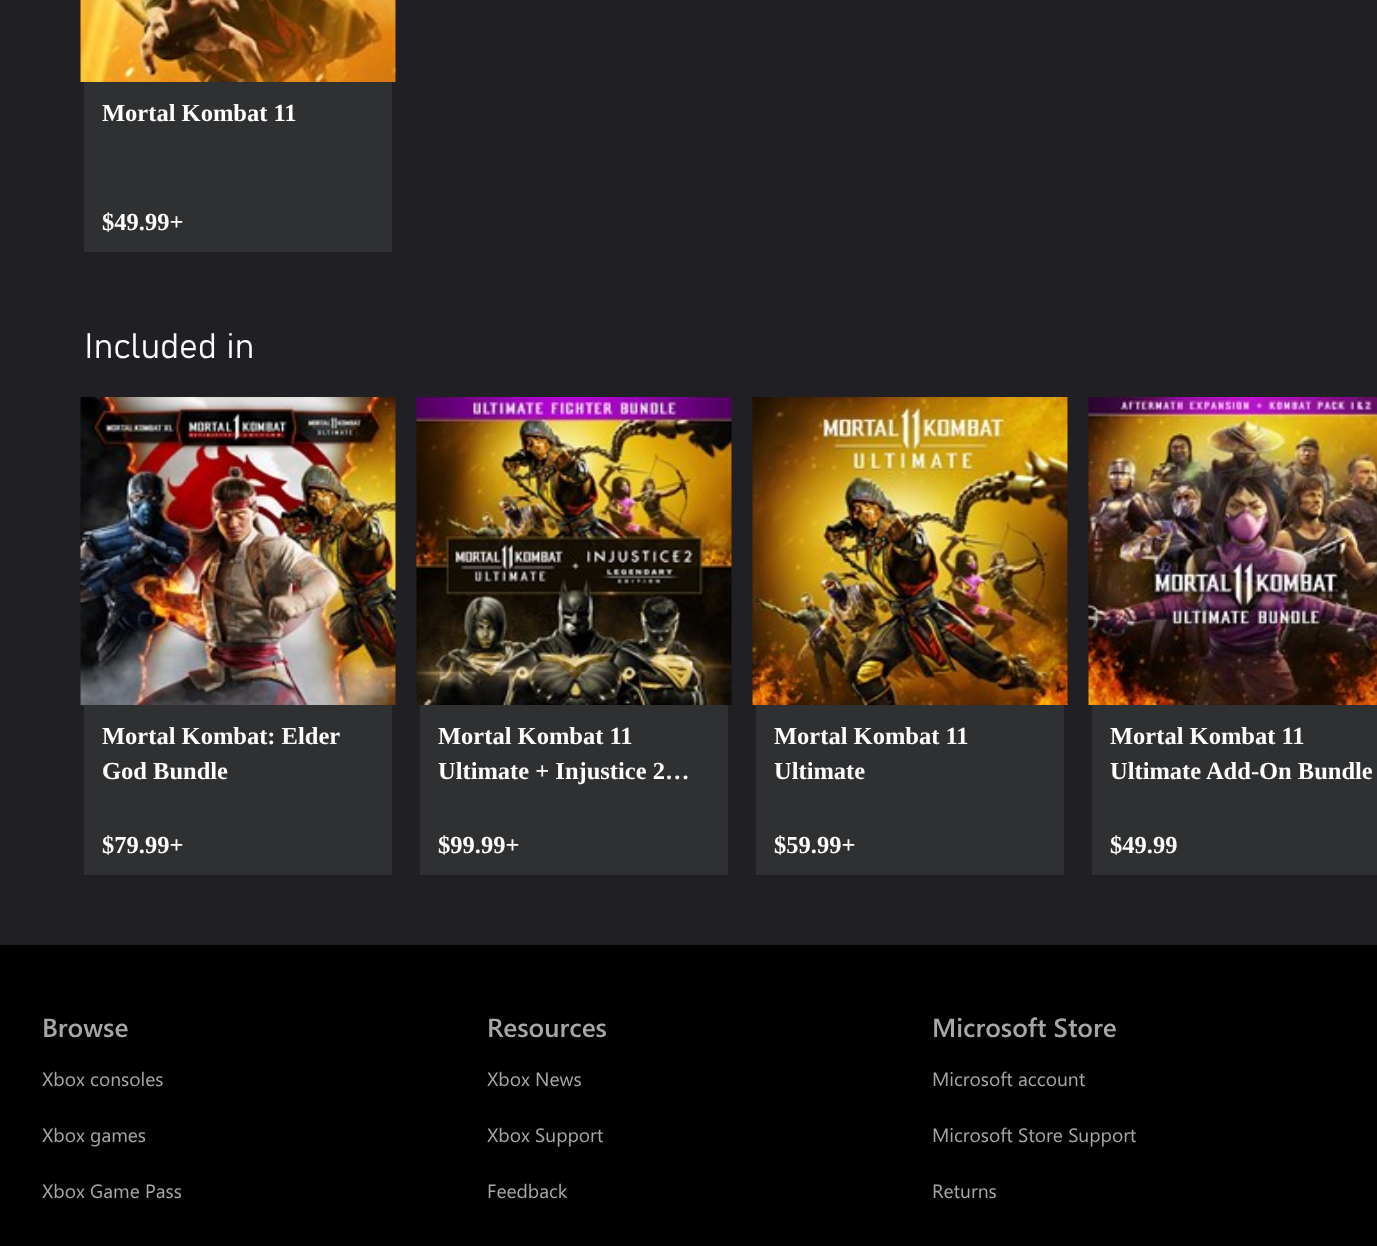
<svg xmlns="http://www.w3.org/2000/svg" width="1377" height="1246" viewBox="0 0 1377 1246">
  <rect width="100%" height="100%" fill="#201f24"/>
  <path d="M84 82h308v170H84z" fill="#2f3032"/>
  <image x="80" y="0" width="316" height="82" href="img/1.png"/>
  <path d="M84 705h308v170H84z" fill="#2f3032"/>
  <image x="80" y="397" width="316" height="308" href="img/2.png"/>
  <path d="M420 705h308v170H420z" fill="#2f3032"/>
  <image x="416" y="397" width="316" height="308" href="img/3.png"/>
  <path d="M756 705h308v170H756z" fill="#2f3032"/>
  <image x="752" y="397" width="316" height="308" href="img/4.png"/>
  <path d="M1092 705h285v170H1092z" fill="#2f3032"/>
  <image x="1088" y="397" width="289" height="308" href="img/5.png"/>
  <path d="M0 945h1377v301H0z" fill="#000"/>
  <g font-family="Liberation Serif" font-size="24.5" font-weight="bold" fill="#fff">
    <text x="102" y="121">Mortal Kombat 11</text>
    <text x="102" y="230">$49.99+</text>
  </g>
  <text x="84" y="358" font-family="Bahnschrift" font-size="35" font-weight="300" fill="#fff">Included in</text>
  <g font-family="Liberation Serif" font-size="24.5" font-weight="bold" fill="#fff">
    <text x="102" y="744">Mortal Kombat: Elder</text>
    <text x="102" y="779">God Bundle</text>
    <text x="102" y="853">$79.99+</text>
    <text x="438" y="744">Mortal Kombat 11</text>
    <text x="438" y="779">Ultimate + Injustice 2…</text>
    <text x="438" y="853">$99.99+</text>
    <text x="774" y="744">Mortal Kombat 11</text>
    <text x="774" y="779">Ultimate</text>
    <text x="774" y="853">$59.99+</text>
    <text x="1110" y="744">Mortal Kombat 11</text>
    <text x="1110" y="779">Ultimate Add-On Bundle</text>
    <text x="1110" y="853">$49.99</text>
  </g>
  <text x="42" y="1037" font-family="Segoe UI" font-size="26.25" font-weight="600" fill="#a7a7a7">Browse</text>
  <g font-family="Segoe UI" font-size="19.25" fill="#a7a7a7">
    <text x="42" y="1086">Xbox consoles</text>
    <text x="42" y="1142">Xbox games</text>
    <text x="42" y="1198">Xbox Game Pass</text>
  </g>
  <text x="487" y="1037" font-family="Segoe UI" font-size="26.25" font-weight="600" fill="#a7a7a7">Resources</text>
  <g font-family="Segoe UI" font-size="19.25" fill="#a7a7a7">
    <text x="487" y="1086">Xbox News</text>
    <text x="487" y="1142">Xbox Support</text>
    <text x="487" y="1198">Feedback</text>
  </g>
  <text x="932" y="1037" font-family="Segoe UI" font-size="26.25" font-weight="600" fill="#a7a7a7">Microsoft Store</text>
  <g font-family="Segoe UI" font-size="19.25" fill="#a7a7a7">
    <text x="932" y="1086">Microsoft account</text>
    <text x="932" y="1142">Microsoft Store Support</text>
    <text x="932" y="1198">Returns</text>
  </g>
</svg>
